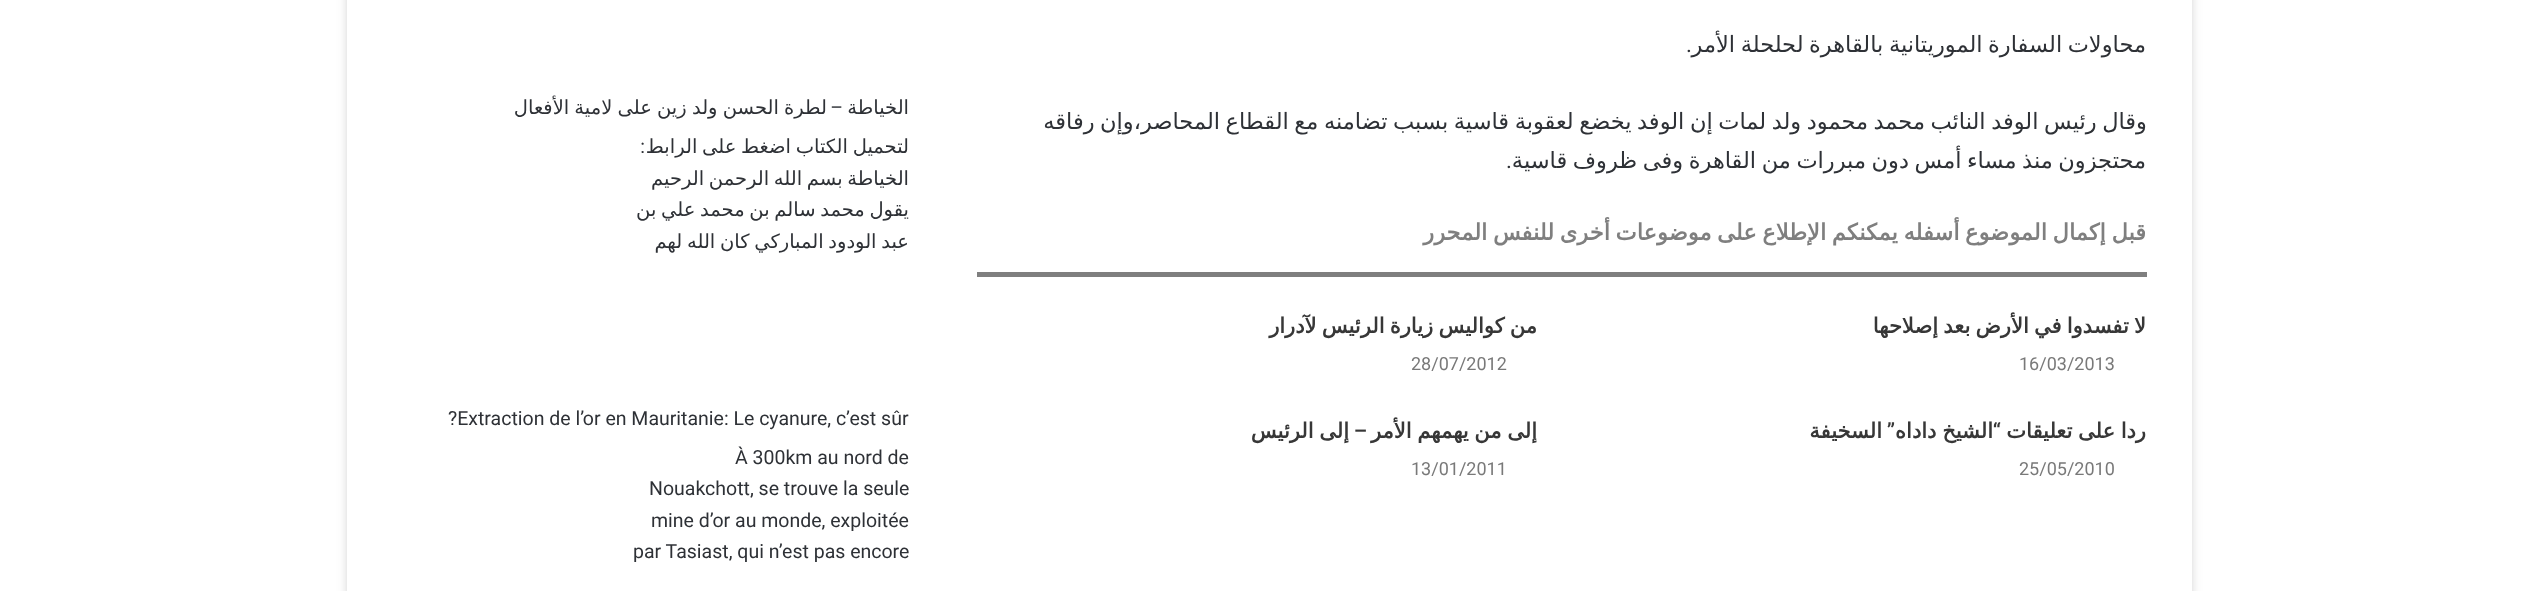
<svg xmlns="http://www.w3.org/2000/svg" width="2538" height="591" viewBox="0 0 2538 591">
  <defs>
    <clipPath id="clip1"><path d="M632 131h277v126H632z"/></clipPath>
  </defs>
  <rect width="100%" height="100%" fill="#fff"/>
  <path d="M347 -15h1845v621H347z" fill="#ababab80" filter="blur(5px)"/>
  <path d="M347 0h1845v591H347z" fill="#fff"/>
  <path d="M977 272h1170v5H977z" fill="#7f7f7f"/>
  <text x="1692" y="52" font-family="Roboto" font-size="22.5" direction="rtl" fill="#2e3136">.</text>
  <g font-family="DejaVu Sans" font-size="22.5" direction="rtl" fill="#2e3136">
    <text x="2146" y="52" word-spacing="-1.6">محاولات السفارة الموريتانية بالقاهرة لحلحلة الأمر</text>
    <text x="2147" y="129" word-spacing="-1.6">وقال رئيس الوفد النائب محمد محمود ولد لمات إن الوفد يخضع لعقوبة قاسية بسبب تضامنه مع القطاع المحاصر،وإن رفاقه</text>
    <text x="2146" y="168" word-spacing="-1.6">محتجزون منذ مساء أمس دون مبررات من القاهرة وفى ظروف قاسية</text>
  </g>
  <text x="1512" y="168" font-family="Roboto" font-size="22.5" direction="rtl" fill="#2e3136">.</text>
  <text x="2146" y="240" word-spacing="-1.5" font-family="DejaVu Sans" font-size="22.5" font-weight="bold" direction="rtl" fill="#7f7f7f">قبل إكمال الموضوع أسفله يمكنكم الإطلاع على موضوعات أخرى للنفس المحرر</text>
  <text x="2146" y="333" word-spacing="-1.5" font-family="DejaVu Sans" font-size="21" font-weight="bold" direction="rtl" fill="#373737">لا تفسدوا في الأرض بعد إصلاحها</text>
  <text x="2019" y="370" font-family="Roboto" font-size="18" fill="#797979">16/03/2013</text>
  <text x="1537" y="333" word-spacing="-1.5" font-family="DejaVu Sans" font-size="21" font-weight="bold" direction="rtl" fill="#373737">من كواليس زيارة الرئيس لآدرار</text>
  <text x="1411" y="370" font-family="Roboto" font-size="18" fill="#797979">28/07/2012</text>
  <text x="2146" y="438" word-spacing="-1" font-family="DejaVu Sans" font-size="21" font-weight="bold" direction="rtl" fill="#373737">ردا على تعليقات</text>
  <text x="2001" y="438" font-family="Roboto" font-size="21" font-weight="600" direction="rtl" fill="#373737">“</text>
  <text x="1993" y="438" word-spacing="-1" font-family="DejaVu Sans" font-size="21" font-weight="bold" direction="rtl" fill="#373737">الشيخ داداه</text>
  <text x="1895" y="438" font-family="Roboto" font-size="21" font-weight="600" direction="rtl" fill="#373737">”</text>
  <text x="1882" y="438" font-family="DejaVu Sans" font-size="21" font-weight="bold" direction="rtl" fill="#373737">السخيفة</text>
  <text x="2019" y="475" font-family="Roboto" font-size="18" fill="#797979">25/05/2010</text>
  <text x="1537" y="438" word-spacing="-1" font-family="DejaVu Sans" font-size="21" font-weight="bold" direction="rtl" fill="#373737">إلى من يهمهم الأمر</text>
  <text x="1367" y="438" font-family="Roboto" font-size="21" font-weight="600" direction="rtl" fill="#373737">–</text>
  <text x="1349" y="438" word-spacing="-1" font-family="DejaVu Sans" font-size="21" font-weight="bold" direction="rtl" fill="#373737">إلى الرئيس</text>
  <text x="1411" y="475" font-family="Roboto" font-size="18" fill="#797979">13/01/2011</text>
  <text x="909" y="114" font-family="DejaVu Sans" font-size="19.5" direction="rtl" fill="#2e3136">الخياطة</text>
  <text x="843" y="114" font-family="Roboto" font-size="19.5" direction="rtl" fill="#2e3136">–</text>
  <text x="827" y="114" word-spacing="-1" font-family="DejaVu Sans" font-size="19.5" direction="rtl" fill="#2e3136">لطرة الحسن ولد زين على لامية الأفعال</text>
  <g clip-path="url(#clip1)">
    <text x="909" y="153" word-spacing="-1.5" font-family="DejaVu Sans" font-size="19.5" direction="rtl" fill="#2e3136">لتحميل الكتاب اضغط على الرابط</text>
  </g>
  <text x="645" y="153" font-family="Roboto" font-size="19.5" direction="rtl" fill="#2e3136">:</text>
  <g clip-path="url(#clip1)">
    <g font-family="DejaVu Sans" font-size="19.5" direction="rtl" fill="#2e3136">
      <text x="909" y="185" word-spacing="-1.5">الخياطة بسم الله الرحمن الرحيم</text>
      <text x="909" y="216" word-spacing="-1.5">يقول محمد سالم بن محمد علي بن</text>
      <text x="909" y="248" word-spacing="-1.5">عبد الودود المباركي كان الله لهم</text>
    </g>
  </g>
  <g font-family="Roboto" font-size="19.5" fill="#2e3136">
    <text x="448" y="425">?Extraction de l’or en Mauritanie: Le cyanure, c’est sûr</text>
    <text x="735" y="464">À 300km au nord de</text>
    <text x="649" y="495">Nouakchott, se trouve la seule</text>
    <text x="651" y="527">mine d’or au monde, exploitée</text>
    <text x="633" y="558">par Tasiast, qui n’est pas encore</text>
  </g>
</svg>
